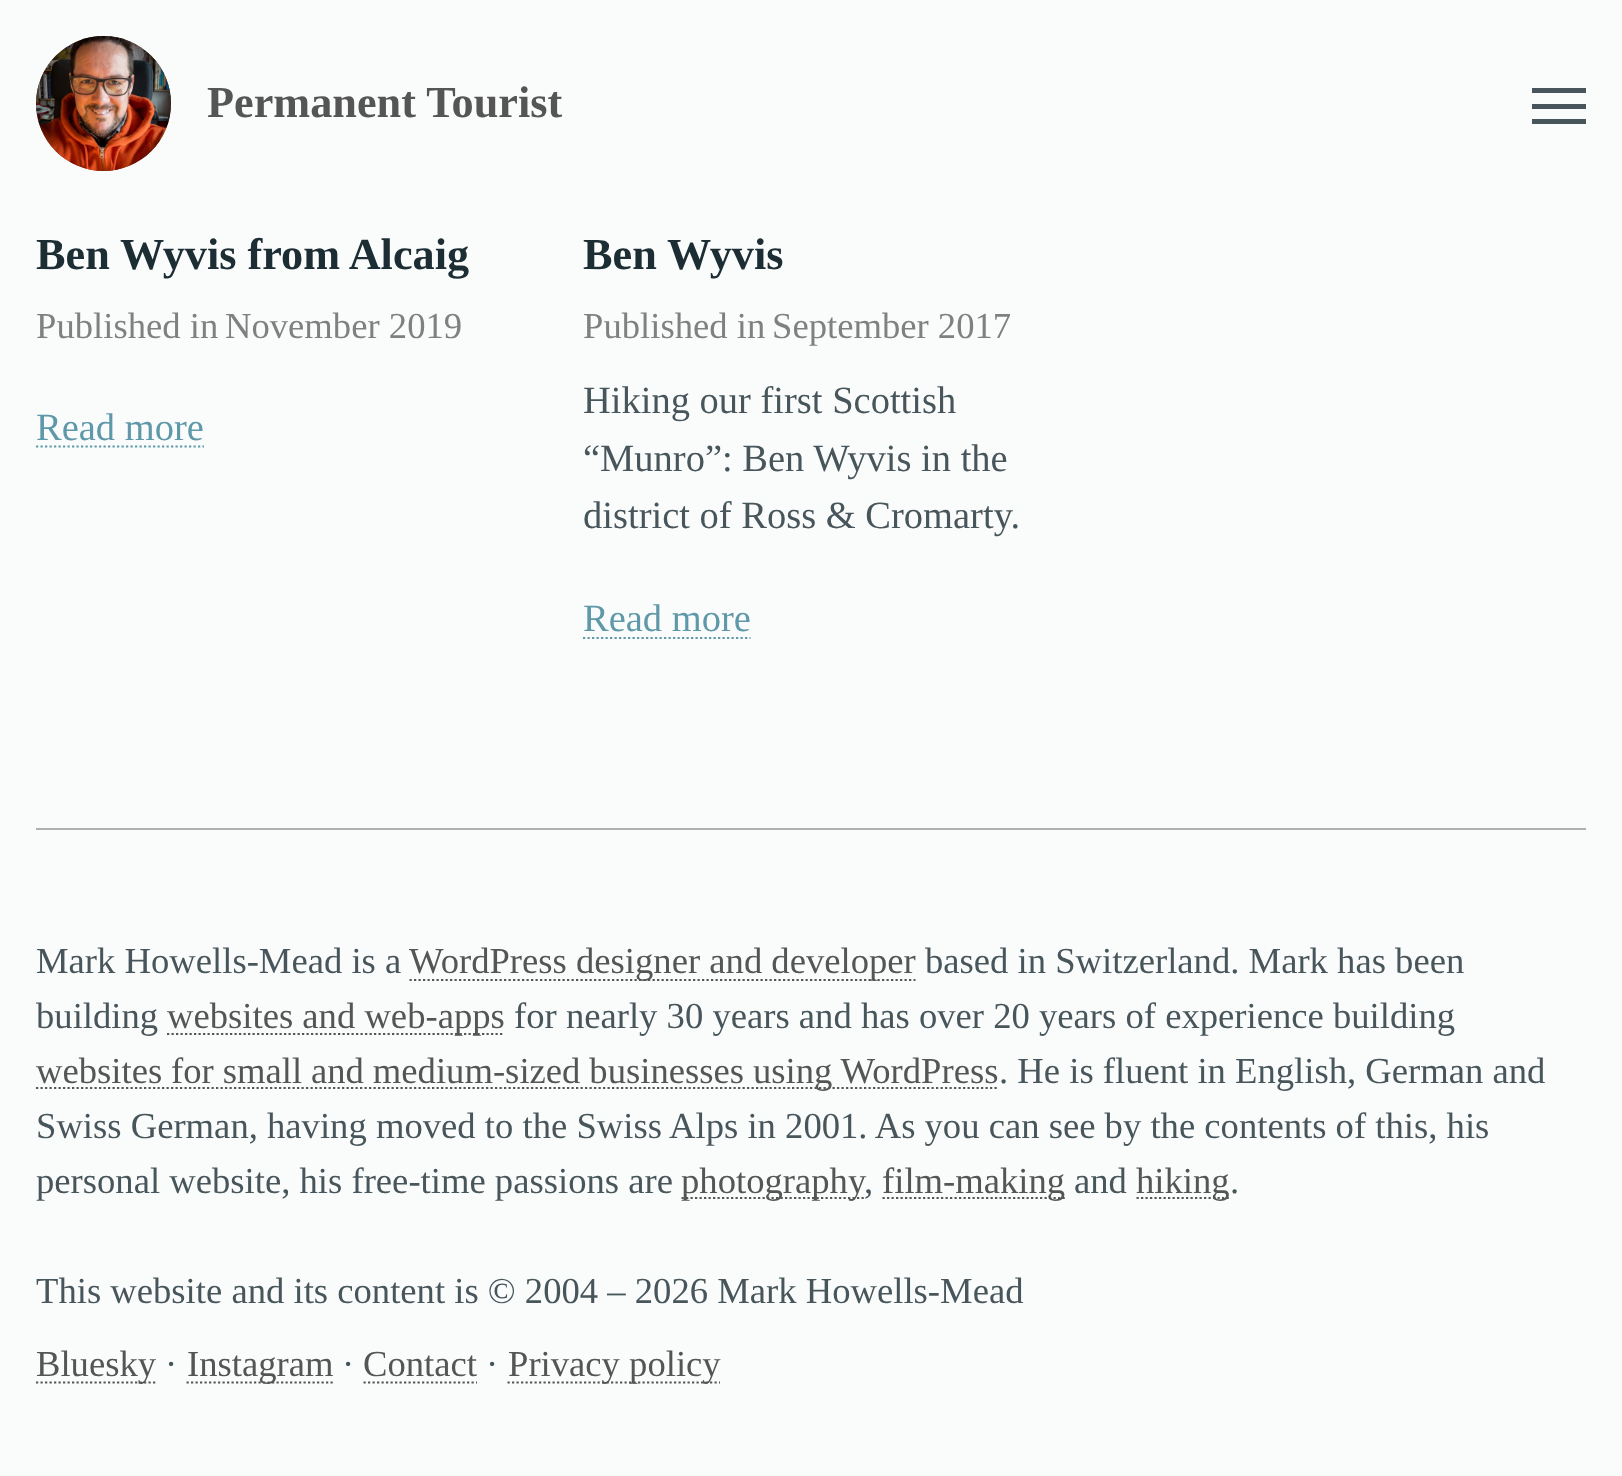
<svg xmlns="http://www.w3.org/2000/svg" width="1622" height="1476" viewBox="0 0 1622 1476">
  <rect width="100%" height="100%" fill="#fafcfc"/>
  <circle cx="103.5" cy="103.5" r="67.5" fill="#7d4534"/>
  <image x="36" y="36" width="135" height="135" href="img/1.png"/>
  <path d="M1532 88h54v5H1532z" fill="#48565b"/>
  <path d="M1532 104h54v5H1532z" fill="#48565b"/>
  <path d="M1532 119h54v5H1532z" fill="#48565b"/>
  <path d="M36 446.5H204" fill="none" stroke="#5f98a8" stroke-width="2.2" stroke-dasharray="2.25 2.25"/>
  <path d="M583 638H750.5" fill="none" stroke="#5f98a8" stroke-width="2.2" stroke-dasharray="2.25 2.25"/>
  <path d="M36 828h1550v2H36z" fill="#b0b0b0"/>
  <path d="M409.5 980H915.5" fill="none" stroke="#555" stroke-width="2.2" stroke-dasharray="2.25 2.25"/>
  <path d="M167 1034H504.5" fill="none" stroke="#555" stroke-width="2.2" stroke-dasharray="2.25 2.25"/>
  <path d="M36 1088H999" fill="none" stroke="#555" stroke-width="2.2" stroke-dasharray="2.25 2.25"/>
  <path d="M681.5 1198H864" fill="none" stroke="#555" stroke-width="2.2" stroke-dasharray="2.25 2.25"/>
  <path d="M882.5 1198H1065.5" fill="none" stroke="#555" stroke-width="2.2" stroke-dasharray="2.25 2.25"/>
  <path d="M1136.5 1198H1230" fill="none" stroke="#555" stroke-width="2.2" stroke-dasharray="2.25 2.25"/>
  <path d="M36 1382.5H156" fill="none" stroke="#555" stroke-width="2.2" stroke-dasharray="2.25 2.25"/>
  <path d="M186.5 1382.5H333" fill="none" stroke="#555" stroke-width="2.2" stroke-dasharray="2.25 2.25"/>
  <path d="M363.5 1382.5H477" fill="none" stroke="#555" stroke-width="2.2" stroke-dasharray="2.25 2.25"/>
  <path d="M507.5 1382.5H720" fill="none" stroke="#555" stroke-width="2.2" stroke-dasharray="2.25 2.25"/>
  <text x="207" y="117" font-family="Liberation Serif" font-size="44.25" font-weight="bold" fill="#555">Permanent Tourist</text>
  <text x="36" y="269" font-family="Liberation Serif" font-size="44.25" font-weight="bold" fill="#1c2d33">Ben Wyvis from Alcaig</text>
  <g font-family="Liberation Serif" font-size="36.65" fill="#808080">
    <text x="36" y="338">Published in</text>
    <text x="225" y="338">November 2019</text>
  </g>
  <text x="36" y="440" font-family="Liberation Serif" font-size="38.5" fill="#5f98a8">Read more</text>
  <text x="583" y="269" font-family="Liberation Serif" font-size="44.25" font-weight="bold" fill="#1c2d33">Ben Wyvis</text>
  <g font-family="Liberation Serif" font-size="36.65" fill="#808080">
    <text x="583" y="338">Published in</text>
    <text x="772" y="338">September 2017</text>
  </g>
  <g font-family="Liberation Serif" font-size="38.5" fill="#48565b">
    <text x="583" y="413">Hiking our first Scottish</text>
    <text x="583" y="471">“Munro”: Ben Wyvis in the</text>
    <text x="583" y="528">district of Ross &amp; Cromarty.</text>
  </g>
  <text x="583" y="631" font-family="Liberation Serif" font-size="38.5" fill="#5f98a8">Read more</text>
  <text x="36" y="973" font-family="Liberation Serif" font-size="36.65" fill="#48565b">Mark Howells-Mead is a</text>
  <text x="409" y="973" font-family="Liberation Serif" font-size="36.65" fill="#555">WordPress designer and developer</text>
  <g font-family="Liberation Serif" font-size="36.65" fill="#48565b">
    <text x="925" y="973">based in Switzerland. Mark has been</text>
    <text x="36" y="1028">building</text>
  </g>
  <text x="167" y="1028" font-family="Liberation Serif" font-size="36.65" fill="#555">websites and web-apps</text>
  <text x="514" y="1028" font-family="Liberation Serif" font-size="36.65" fill="#48565b">for nearly 30 years and has over 20 years of experience building</text>
  <text x="36" y="1083" word-spacing="-0.25" font-family="Liberation Serif" font-size="36.65" fill="#555">websites for small and medium-sized businesses using WordPress</text>
  <g font-family="Liberation Serif" font-size="36.65" fill="#48565b">
    <text x="999" y="1083">. He is fluent in English, German and</text>
    <text x="36" y="1138">Swiss German, having moved to the Swiss Alps in 2001. As you can see by the contents of this, his</text>
    <text x="36" y="1193">personal website, his free-time passions are</text>
  </g>
  <text x="681" y="1193" font-family="Liberation Serif" font-size="36.65" fill="#555">photography</text>
  <text x="864" y="1193" font-family="Liberation Serif" font-size="36.65" fill="#48565b">,</text>
  <text x="882" y="1193" font-family="Liberation Serif" font-size="36.65" fill="#555">film-making</text>
  <text x="1074" y="1193" font-family="Liberation Serif" font-size="36.65" fill="#48565b">and</text>
  <text x="1136" y="1193" font-family="Liberation Serif" font-size="36.65" fill="#555">hiking</text>
  <g font-family="Liberation Serif" font-size="36.65" fill="#48565b">
    <text x="1230" y="1193">.</text>
    <text x="36" y="1303">This website and its content is © 2004 – 2026 Mark Howells-Mead</text>
  </g>
  <text x="36" y="1376" font-family="Liberation Serif" font-size="36.65" fill="#555">Bluesky</text>
  <text x="165" y="1376" font-family="Liberation Serif" font-size="36.65" fill="#48565b">·</text>
  <text x="187" y="1376" font-family="Liberation Serif" font-size="36.65" fill="#555">Instagram</text>
  <text x="342" y="1376" font-family="Liberation Serif" font-size="36.65" fill="#48565b">·</text>
  <text x="363" y="1376" font-family="Liberation Serif" font-size="36.65" fill="#555">Contact</text>
  <text x="486" y="1376" font-family="Liberation Serif" font-size="36.65" fill="#48565b">·</text>
  <text x="508" y="1376" font-family="Liberation Serif" font-size="36.65" fill="#555">Privacy policy</text>
</svg>
